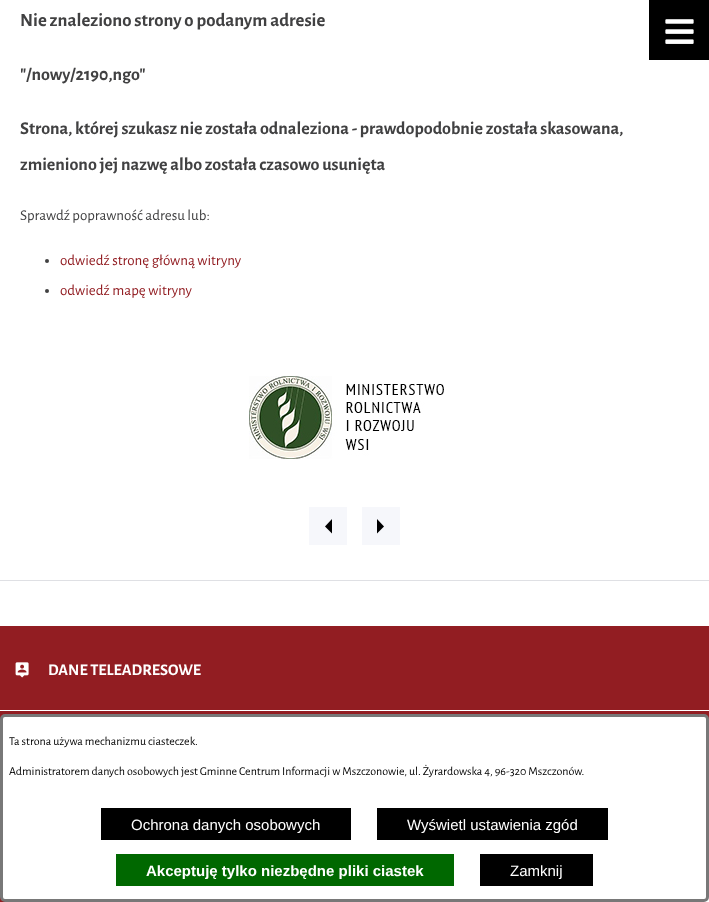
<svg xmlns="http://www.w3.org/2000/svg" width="709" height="902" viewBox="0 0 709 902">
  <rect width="100%" height="100%" fill="#fff"/>
  <circle cx="47" cy="261" r="2" fill="#414142"/>
  <circle cx="47" cy="291" r="2" fill="#414142"/>
  <path d="M649 0h60v60H649z" fill="#000"/>
  <image x="665" y="19" width="29" height="25" href="img/1.png"/>
  <path d="M0 580h709v1H0z" fill="#dfe0e4"/>
  <image x="249" y="376" width="195" height="83" href="img/2.png"/>
  <path d="M309 507h38v38H309z" fill="#f6f7fb"/>
  <path d="M332 533.5L325 526.5L332 519Z" fill="#000"/>
  <path d="M362 507h38v38H362z" fill="#f6f7fb"/>
  <path d="M377 533.5L384 526.5L377 519Z" fill="#000"/>
  <path d="M0 626h709v276H0z" fill="#921d22"/>
  <path d="M0 710h709v1H0z" fill="#fff"/>
  <image x="15" y="662" width="14" height="16" href="img/3.png"/>
  <path d="M650.5 837.5h57v63H650.5z" fill="none" stroke="#fff" stroke-width="3"/>
  <rect x="1.5" y="715.5" width="706" height="185" rx="3.5" fill="#fff" stroke="#787878" stroke-width="3"/>
  <path d="M101 808h250v32H101z" fill="#000"/>
  <path d="M377 808h231v32H377z" fill="#000"/>
  <path d="M116 854h338v32H116z" fill="#006800"/>
  <path d="M480 854h113v32H480z" fill="#000"/>
  <text x="20" y="26" font-family="Alegreya Sans" font-size="18.75" font-weight="bold" fill="#414142">Nie znaleziono strony o podanym adresie</text>
  <g font-family="Alegreya Sans" font-size="18" font-weight="bold" fill="#414142">
    <text x="20" y="80">"/nowy/2190,ngo"</text>
    <text x="20" y="134">Strona, której szukasz nie została odnaleziona - prawdopodobnie została skasowana,</text>
    <text x="20" y="170">zmieniono jej nazwę albo została czasowo usunięta</text>
  </g>
  <text x="20" y="220" font-family="Alegreya Sans" font-size="15" fill="#414142">Sprawdź poprawność adresu lub:</text>
  <g font-family="Alegreya Sans" font-size="15" fill="#921d22">
    <text x="60" y="265">odwiedź stronę główną witryny</text>
    <text x="60" y="295">odwiedź mapę witryny</text>
  </g>
  <text x="48" y="675" font-family="Alegreya Sans" font-size="16.25" font-weight="bold" fill="#fff">DANE TELEADRESOWE</text>
  <g font-family="Alegreya Sans" font-size="12" fill="#000">
    <text x="9" y="745">Ta strona używa mechanizmu ciasteczek.</text>
    <text x="9" y="775">Administratorem danych osobowych jest Gminne Centrum Informacji w Mszczonowie, ul. Żyrardowska 4, 96-320 Mszczonów.</text>
  </g>
  <g font-family="Liberation Sans" font-size="15" fill="#fff">
    <text x="131" y="830">Ochrona danych osobowych</text>
    <text x="407" y="830">Wyświetl ustawienia zgód</text>
  </g>
  <text x="146" y="876" font-family="Liberation Sans" font-size="15" font-weight="bold" fill="#fff">Akceptuję tylko niezbędne pliki ciastek</text>
  <text x="510" y="876" font-family="Liberation Sans" font-size="15" fill="#fff">Zamknij</text>
</svg>
